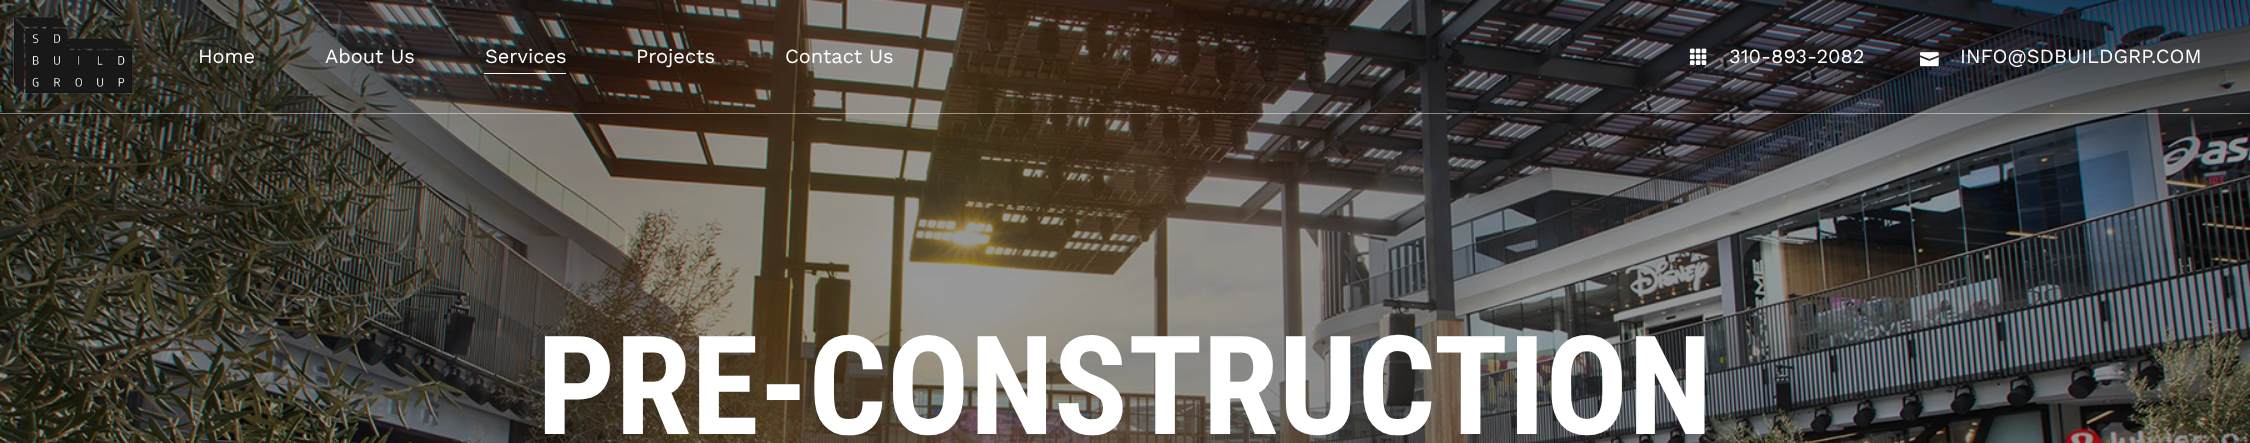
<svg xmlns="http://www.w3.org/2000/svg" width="2250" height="443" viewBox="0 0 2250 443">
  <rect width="100%" height="100%" fill="#fff"/>
  <image x="0" y="0" width="2250" height="443" href="img/4.png"/>
  <path d="M0 113h2250v1H0z" fill="#ffffff73"/>
  <image x="13" y="17" width="120" height="77" href="img/1.png"/>
  <path d="M484 73h82v1H484z" fill="#fff"/>
  <image x="1689" y="48" width="18" height="17" href="img/2.png"/>
  <image x="1920" y="52" width="19" height="15" href="img/3.png"/>
  <g font-family="Work Sans" font-size="20" fill="#fff">
    <text x="198" y="63">Home</text>
    <text x="325" y="63">About Us</text>
    <text x="485" y="63">Services</text>
    <text x="636" y="63">Projects</text>
    <text x="785" y="63">Contact Us</text>
    <text x="1729" y="63">310-893-2082</text>
    <text x="1960" y="63">INFO@SDBUILDGRP.COM</text>
  </g>
  <text x="537" y="434" font-family="Roboto Condensed" font-size="137.5" font-weight="bold" fill="#fff">PRE-CONSTRUCTION</text>
</svg>
